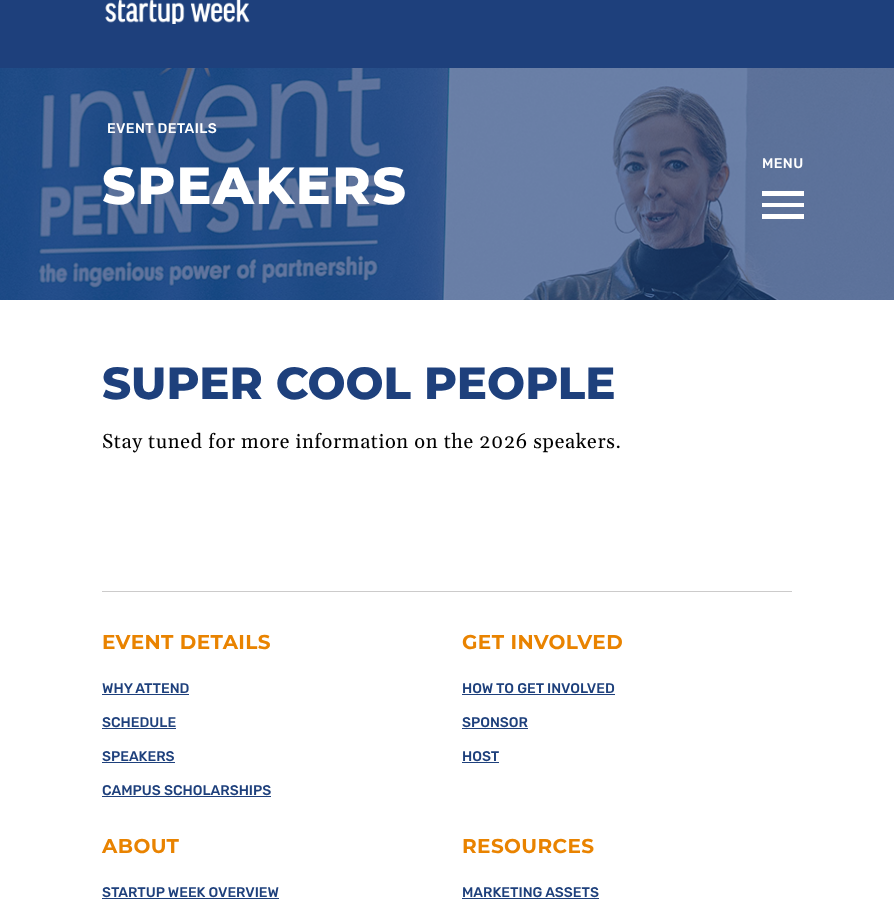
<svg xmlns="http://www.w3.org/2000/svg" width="894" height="916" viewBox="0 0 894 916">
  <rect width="100%" height="100%" fill="#fff"/>
  <path d="M0 0h894v68H0z" fill="#1e407c"/>
  <image x="105" y="0" width="145" height="24" href="img/1.png"/>
  <image x="0" y="68" width="894" height="232" href="img/2.png"/>
  <path d="M762 219H804V214H762ZM762 207H804V203H762ZM762 191V196H804V191Z" fill="#fff"/>
  <path d="M102 591h690v1H102z" fill="#cccbcb"/>
  <path d="M102 694h87v1H102z" fill="#1e407c"/>
  <path d="M102 728h74v1H102z" fill="#1e407c"/>
  <path d="M102 762h73v1H102z" fill="#1e407c"/>
  <path d="M102 796h169v1H102z" fill="#1e407c"/>
  <path d="M462 694h153v1H462z" fill="#1e407c"/>
  <path d="M462 728h66v1H462z" fill="#1e407c"/>
  <path d="M462 762h37v1H462z" fill="#1e407c"/>
  <path d="M102 898h177v1H102z" fill="#1e407c"/>
  <path d="M462 898h137v1H462z" fill="#1e407c"/>
  <text x="107" y="133" font-family="Rubik" font-size="14" font-weight="300" letter-spacing="0.4" fill="#fff">EVENT DETAILS</text>
  <text x="102" y="204" font-family="Montserrat" font-size="52" font-weight="800" letter-spacing="1.5" fill="#fff">SPEAKERS</text>
  <text x="762" y="168" font-family="Rubik" font-size="14" font-weight="300" letter-spacing="0.4" fill="#fff">MENU</text>
  <text x="102" y="399" font-family="Montserrat" font-size="45" font-weight="800" fill="#1e407c">SUPER COOL PEOPLE</text>
  <text x="102" y="448" font-family="Gelasio" font-size="20" letter-spacing="0.65" fill="#000">Stay tuned for more information on the 2026 speakers.</text>
  <text x="102" y="649" font-family="Montserrat" font-size="20" font-weight="bold" letter-spacing="0.4" fill="#e98300">EVENT DETAILS</text>
  <g font-family="Rubik" font-size="14" font-weight="300" fill="#1e407c">
    <text x="102" y="693">WHY ATTEND</text>
    <text x="102" y="727">SCHEDULE</text>
    <text x="102" y="761">SPEAKERS</text>
    <text x="102" y="795">CAMPUS SCHOLARSHIPS</text>
  </g>
  <text x="462" y="649" font-family="Montserrat" font-size="20" font-weight="bold" letter-spacing="0.4" fill="#e98300">GET INVOLVED</text>
  <g font-family="Rubik" font-size="14" font-weight="300" fill="#1e407c">
    <text x="462" y="693">HOW TO GET INVOLVED</text>
    <text x="462" y="727">SPONSOR</text>
    <text x="462" y="761">HOST</text>
  </g>
  <text x="102" y="853" font-family="Montserrat" font-size="20" font-weight="bold" letter-spacing="0.4" fill="#e98300">ABOUT</text>
  <text x="102" y="897" font-family="Rubik" font-size="14" font-weight="300" fill="#1e407c">STARTUP WEEK OVERVIEW</text>
  <text x="462" y="853" font-family="Montserrat" font-size="20" font-weight="bold" letter-spacing="0.4" fill="#e98300">RESOURCES</text>
  <text x="462" y="897" font-family="Rubik" font-size="14" font-weight="300" fill="#1e407c">MARKETING ASSETS</text>
</svg>
